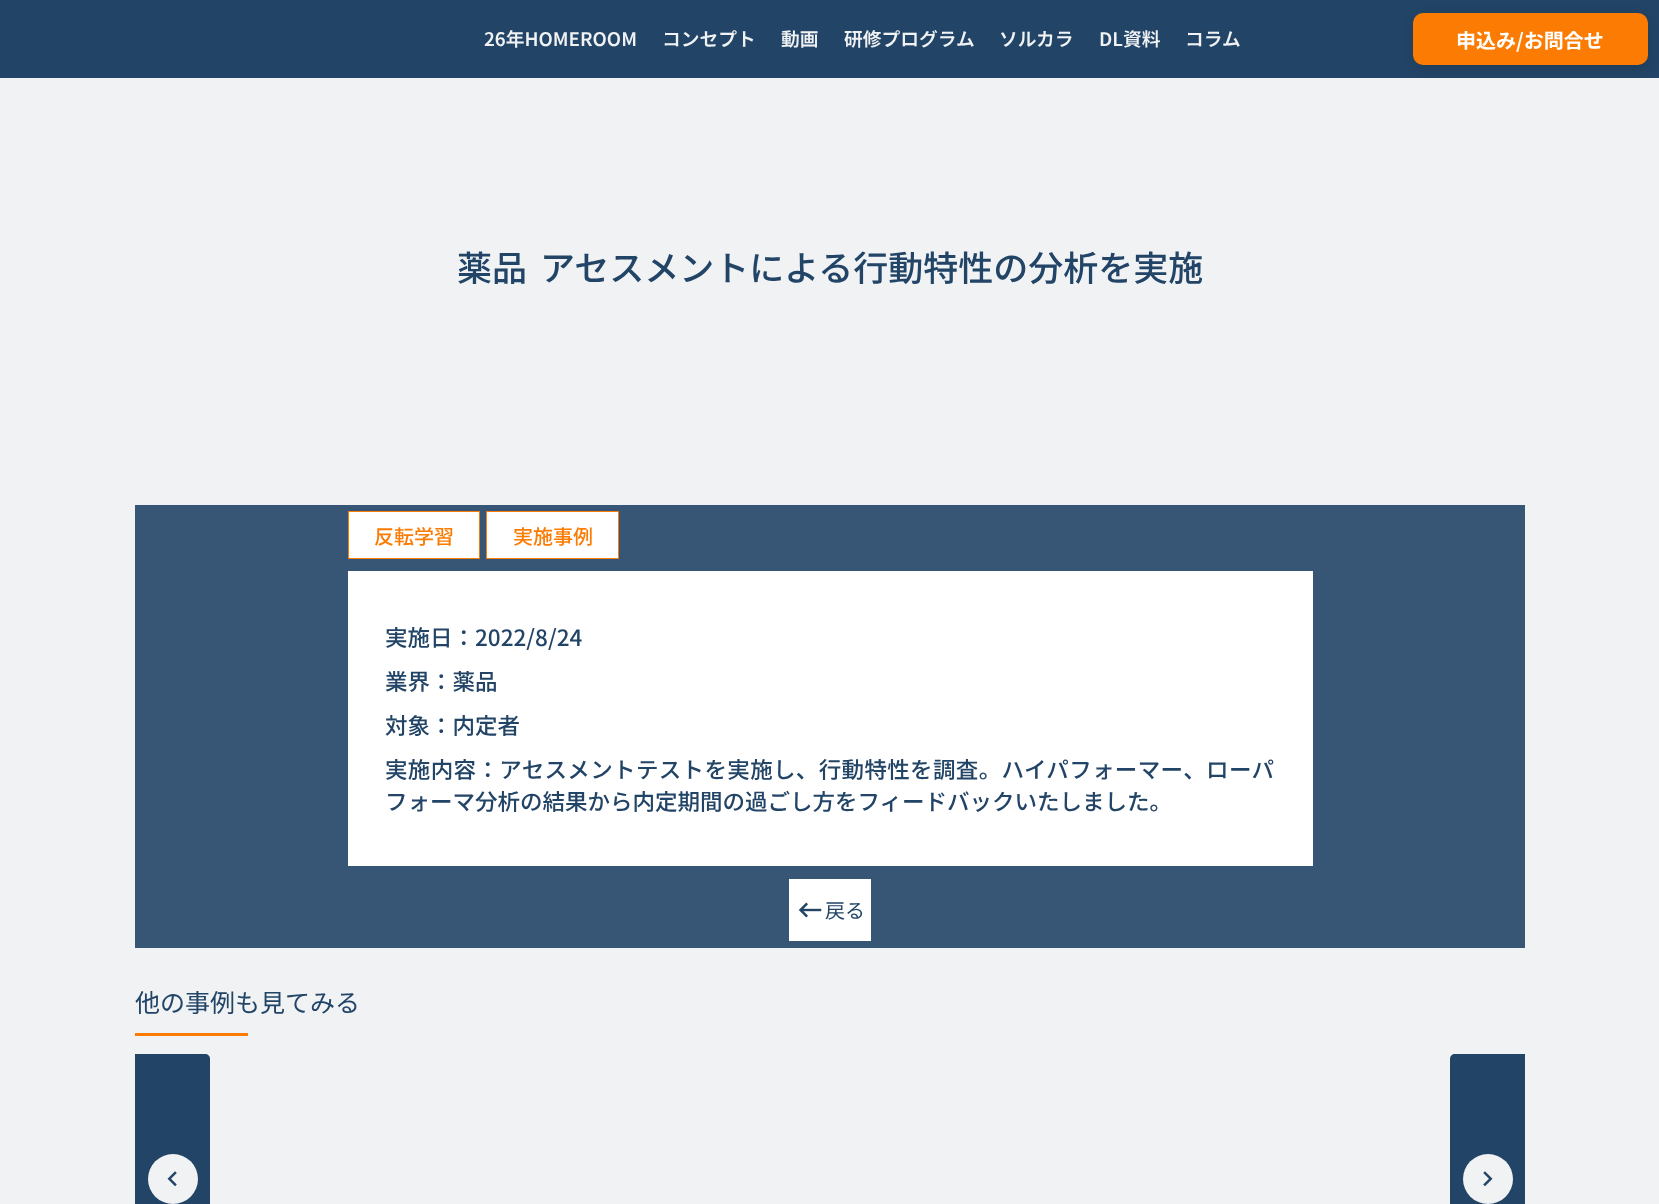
<svg xmlns="http://www.w3.org/2000/svg" width="1659" height="1204" viewBox="0 0 1659 1204">
  <rect width="100%" height="100%" fill="#f0f2f4"/>
  <path d="M0 0h1659v78H0z" fill="#246"/>
  <rect x="1414" y="16" width="235" height="53" rx="10" fill="#0000001a" filter="blur(6px)"/>
  <rect x="1413" y="13" width="235" height="52" rx="10" fill="#fc7c03"/>
  <path d="M135 505h1390v443H135z" fill="#375574"/>
  <path d="M348.5 511.5h131v47H348.5z" fill="#fff" stroke="#fc7c03"/>
  <path d="M486.5 511.5h132v47H486.5z" fill="#fff" stroke="#fc7c03"/>
  <path d="M348 571h965v295H348z" fill="#fff"/>
  <path d="M789 879h82v62H789z" fill="#fff"/>
  <image x="798" y="902" width="24" height="16" href="img/1.png"/>
  <path d="M135 1033h113v3H135z" fill="#fc7c03"/>
  <path d="M135 1054H205C208 1054 210 1056 210 1059V1204C210 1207 208 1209 205 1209H135Z" fill="#246"/>
  <circle cx="173" cy="1179" r="25" fill="#f0f2f4"/>
  <image x="167" y="1171" width="10" height="16" href="img/2.png"/>
  <path d="M1455 1054H1525V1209H1455C1452 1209 1450 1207 1450 1204V1059C1450 1056 1452 1054 1455 1054Z" fill="#246"/>
  <circle cx="1488" cy="1179" r="25" fill="#f0f2f4"/>
  <image x="1483" y="1171" width="10" height="16" href="img/3.png"/>
  <g font-family="Noto Sans JP" font-size="18.75" font-weight="600" fill="#f0f2f4">
    <text x="484" y="46">26年HOMEROOM</text>
    <text x="662" y="46">コンセプト</text>
    <text x="781" y="46">動画</text>
    <text x="844" y="46">研修プログラム</text>
    <text x="999" y="46">ソルカラ</text>
    <text x="1099" y="46">DL資料</text>
    <text x="1185" y="46">コラム</text>
  </g>
  <text x="1456" y="48" font-family="Noto Sans JP" font-size="20" font-weight="bold" fill="#fff">申込み/お問合せ</text>
  <g font-family="Noto Sans JP" font-size="35" font-weight="500" fill="#246">
    <text x="457" y="281">薬品</text>
    <text x="540" y="281">アセスメントによる行動特性の分析を実施</text>
  </g>
  <g font-family="Noto Sans JP" font-size="20" font-weight="500" fill="#fc7c03">
    <text x="374" y="544">反転学習</text>
    <text x="513" y="544">実施事例</text>
  </g>
  <g font-family="Noto Sans JP" font-size="22.5" font-weight="500" fill="#246">
    <text x="385" y="646">実施日：2022/8/24</text>
    <text x="385" y="690">業界：薬品</text>
    <text x="385" y="734">対象：内定者</text>
  </g>
  <text x="385" y="778" font-family="Noto Sans JP" font-size="22.5" font-weight="500" letter-spacing="0.35" fill="#246">実施内容：アセスメントテストを実施し、行動特性を調査。ハイパフォーマー、ローパ</text>
  <text x="385" y="810" font-family="Noto Sans JP" font-size="22.5" font-weight="500" fill="#246">フォーマ分析の結果から内定期間の過ごし方をフィードバックいたしました。</text>
  <text x="825" y="918" font-family="Noto Sans JP" font-size="20" fill="#246">戻る</text>
  <text x="135" y="1012" font-family="Noto Sans JP" font-size="25" fill="#246">他の事例も見てみる</text>
</svg>
